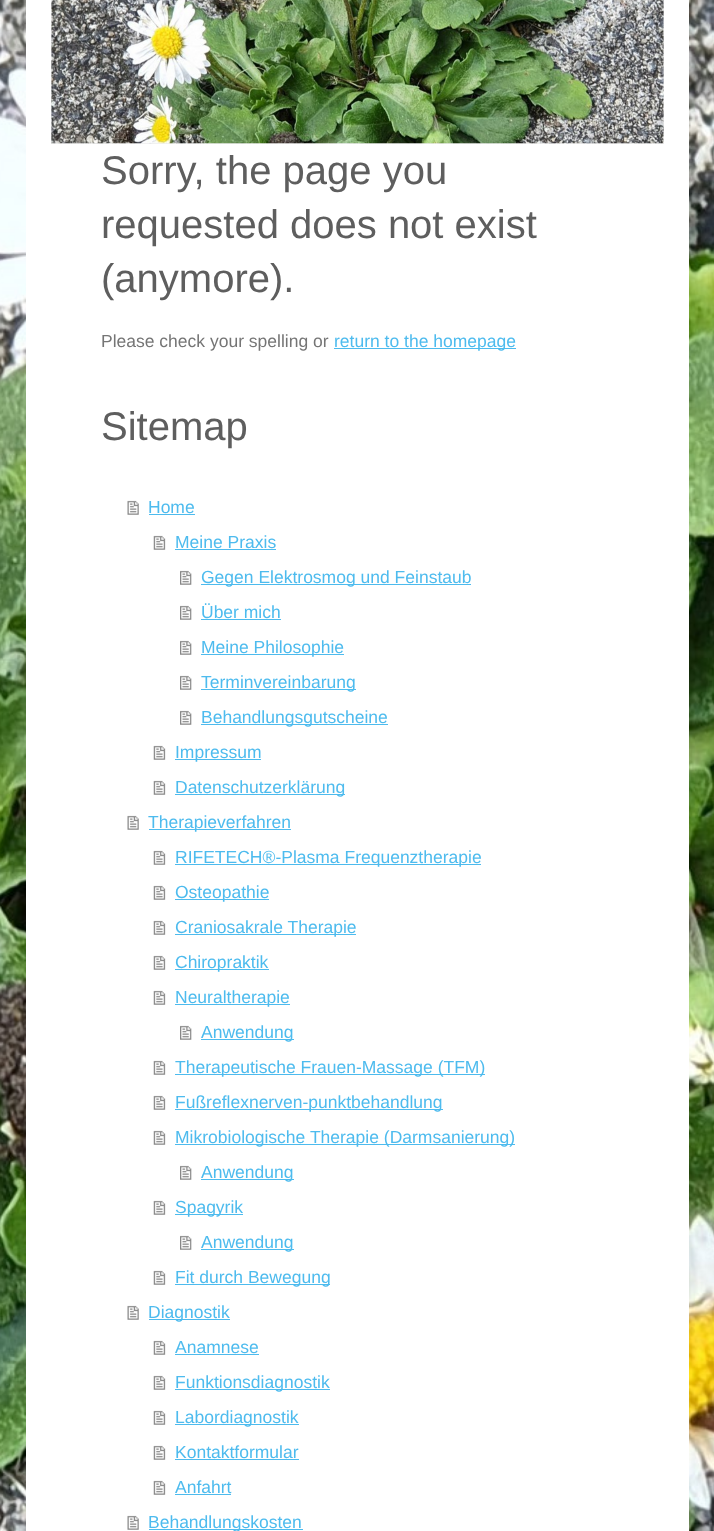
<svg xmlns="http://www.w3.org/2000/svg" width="714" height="1531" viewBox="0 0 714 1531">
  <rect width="100%" height="100%" fill="#fff"/>
  <image x="0" y="0" width="714" height="1531" href="img/1.png"/>
  <path d="M26 0h663v1531H26z" fill="#fff"/>
  <path d="M51 0h613v144H51z" fill="#eee"/>
  <image x="51" y="0" width="613" height="144" href="img/2.png"/>
  <path d="M334 348h182v1H334z" fill="#4dbbee"/>
  <image x="127" y="500" width="12" height="15" href="img/3.png"/>
  <path d="M149 514h46v1H149z" fill="#4dbbee"/>
  <image x="153" y="535" width="13" height="15" href="img/4.png"/>
  <path d="M175 549h101v1H175z" fill="#4dbbee"/>
  <image x="180" y="570" width="12" height="15" href="img/5.png"/>
  <path d="M201 584h270v1H201z" fill="#4dbbee"/>
  <image x="180" y="605" width="12" height="15" href="img/5.png"/>
  <path d="M201 619h80v1H201z" fill="#4dbbee"/>
  <image x="180" y="640" width="12" height="15" href="img/5.png"/>
  <path d="M201 654h143v1H201z" fill="#4dbbee"/>
  <image x="180" y="675" width="12" height="15" href="img/5.png"/>
  <path d="M201 689h155v1H201z" fill="#4dbbee"/>
  <image x="180" y="710" width="12" height="15" href="img/5.png"/>
  <path d="M201 724h187v1H201z" fill="#4dbbee"/>
  <image x="153" y="745" width="13" height="15" href="img/4.png"/>
  <path d="M175 759h86v1H175z" fill="#4dbbee"/>
  <image x="153" y="780" width="13" height="15" href="img/4.png"/>
  <path d="M175 794h170v1H175z" fill="#4dbbee"/>
  <image x="127" y="815" width="12" height="15" href="img/3.png"/>
  <path d="M149 829h142v1H149z" fill="#4dbbee"/>
  <image x="153" y="850" width="13" height="15" href="img/6.png"/>
  <path d="M175 864h306v1H175z" fill="#4dbbee"/>
  <image x="153" y="885" width="13" height="15" href="img/4.png"/>
  <path d="M175 899h94v1H175z" fill="#4dbbee"/>
  <image x="153" y="920" width="13" height="15" href="img/4.png"/>
  <path d="M175 934h181v1H175z" fill="#4dbbee"/>
  <image x="153" y="955" width="13" height="15" href="img/4.png"/>
  <path d="M175 969h94v1H175z" fill="#4dbbee"/>
  <image x="153" y="990" width="13" height="15" href="img/4.png"/>
  <path d="M175 1004h115v1H175z" fill="#4dbbee"/>
  <image x="180" y="1025" width="12" height="15" href="img/5.png"/>
  <path d="M201 1039h93v1H201z" fill="#4dbbee"/>
  <image x="153" y="1060" width="13" height="15" href="img/4.png"/>
  <path d="M175 1074h310v1H175z" fill="#4dbbee"/>
  <image x="153" y="1095" width="13" height="15" href="img/4.png"/>
  <path d="M175 1109h268v1H175z" fill="#4dbbee"/>
  <image x="153" y="1130" width="13" height="15" href="img/4.png"/>
  <path d="M175 1144h340v1H175z" fill="#4dbbee"/>
  <image x="180" y="1165" width="12" height="15" href="img/5.png"/>
  <path d="M201 1179h93v1H201z" fill="#4dbbee"/>
  <image x="153" y="1200" width="13" height="15" href="img/4.png"/>
  <path d="M175 1214h68v1H175z" fill="#4dbbee"/>
  <image x="180" y="1235" width="12" height="15" href="img/7.png"/>
  <path d="M201 1249h93v1H201z" fill="#4dbbee"/>
  <image x="153" y="1270" width="13" height="15" href="img/4.png"/>
  <path d="M175 1284h155v1H175z" fill="#4dbbee"/>
  <image x="127" y="1305" width="12" height="15" href="img/3.png"/>
  <path d="M149 1319h81v1H149z" fill="#4dbbee"/>
  <image x="153" y="1340" width="13" height="15" href="img/4.png"/>
  <path d="M175 1354h84v1H175z" fill="#4dbbee"/>
  <image x="153" y="1375" width="13" height="15" href="img/4.png"/>
  <path d="M175 1389h155v1H175z" fill="#4dbbee"/>
  <image x="153" y="1410" width="13" height="15" href="img/4.png"/>
  <path d="M175 1424h124v1H175z" fill="#4dbbee"/>
  <image x="153" y="1445" width="13" height="15" href="img/4.png"/>
  <path d="M175 1459h124v1H175z" fill="#4dbbee"/>
  <image x="153" y="1480" width="13" height="15" href="img/4.png"/>
  <path d="M175 1494h56v1H175z" fill="#4dbbee"/>
  <image x="127" y="1515" width="12" height="15" href="img/3.png"/>
  <path d="M149 1529h154v1H149z" fill="#4dbbee"/>
  <g font-family="Liberation Sans" font-size="40" fill="#5e5e5e">
    <text x="101" y="184">Sorry, the page you</text>
    <text x="101" y="238">requested does not exist</text>
    <text x="101" y="292">(anymore).</text>
  </g>
  <text x="101" y="347" font-family="Liberation Sans" font-size="17.5" fill="#757575">Please check your spelling or</text>
  <text x="334" y="347" font-family="Liberation Sans" font-size="17.5" fill="#4dbbee">return to the homepage</text>
  <text x="101" y="440" font-family="Liberation Sans" font-size="40" fill="#5e5e5e">Sitemap</text>
  <g font-family="Liberation Sans" font-size="17.5" fill="#4dbbee">
    <text x="148" y="513">Home</text>
    <text x="175" y="548">Meine Praxis</text>
    <text x="201" y="583">Gegen Elektrosmog und Feinstaub</text>
    <text x="201" y="618">Über mich</text>
    <text x="201" y="653">Meine Philosophie</text>
    <text x="201" y="688">Terminvereinbarung</text>
    <text x="201" y="723">Behandlungsgutscheine</text>
    <text x="175" y="758">Impressum</text>
    <text x="175" y="793">Datenschutzerklärung</text>
    <text x="148" y="828">Therapieverfahren</text>
    <text x="175" y="863">RIFETECH®-Plasma Frequenztherapie</text>
    <text x="175" y="898">Osteopathie</text>
    <text x="175" y="933">Craniosakrale Therapie</text>
    <text x="175" y="968">Chiropraktik</text>
    <text x="175" y="1003">Neuraltherapie</text>
    <text x="201" y="1038">Anwendung</text>
    <text x="175" y="1073">Therapeutische Frauen-Massage (TFM)</text>
    <text x="175" y="1108">Fußreflexnerven-punktbehandlung</text>
    <text x="175" y="1143">Mikrobiologische Therapie (Darmsanierung)</text>
    <text x="201" y="1178">Anwendung</text>
    <text x="175" y="1213">Spagyrik</text>
    <text x="201" y="1248">Anwendung</text>
    <text x="175" y="1283">Fit durch Bewegung</text>
    <text x="148" y="1318">Diagnostik</text>
    <text x="175" y="1353">Anamnese</text>
    <text x="175" y="1388">Funktionsdiagnostik</text>
    <text x="175" y="1423">Labordiagnostik</text>
    <text x="175" y="1458">Kontaktformular</text>
    <text x="175" y="1493">Anfahrt</text>
    <text x="148" y="1528">Behandlungskosten</text>
  </g>
</svg>
